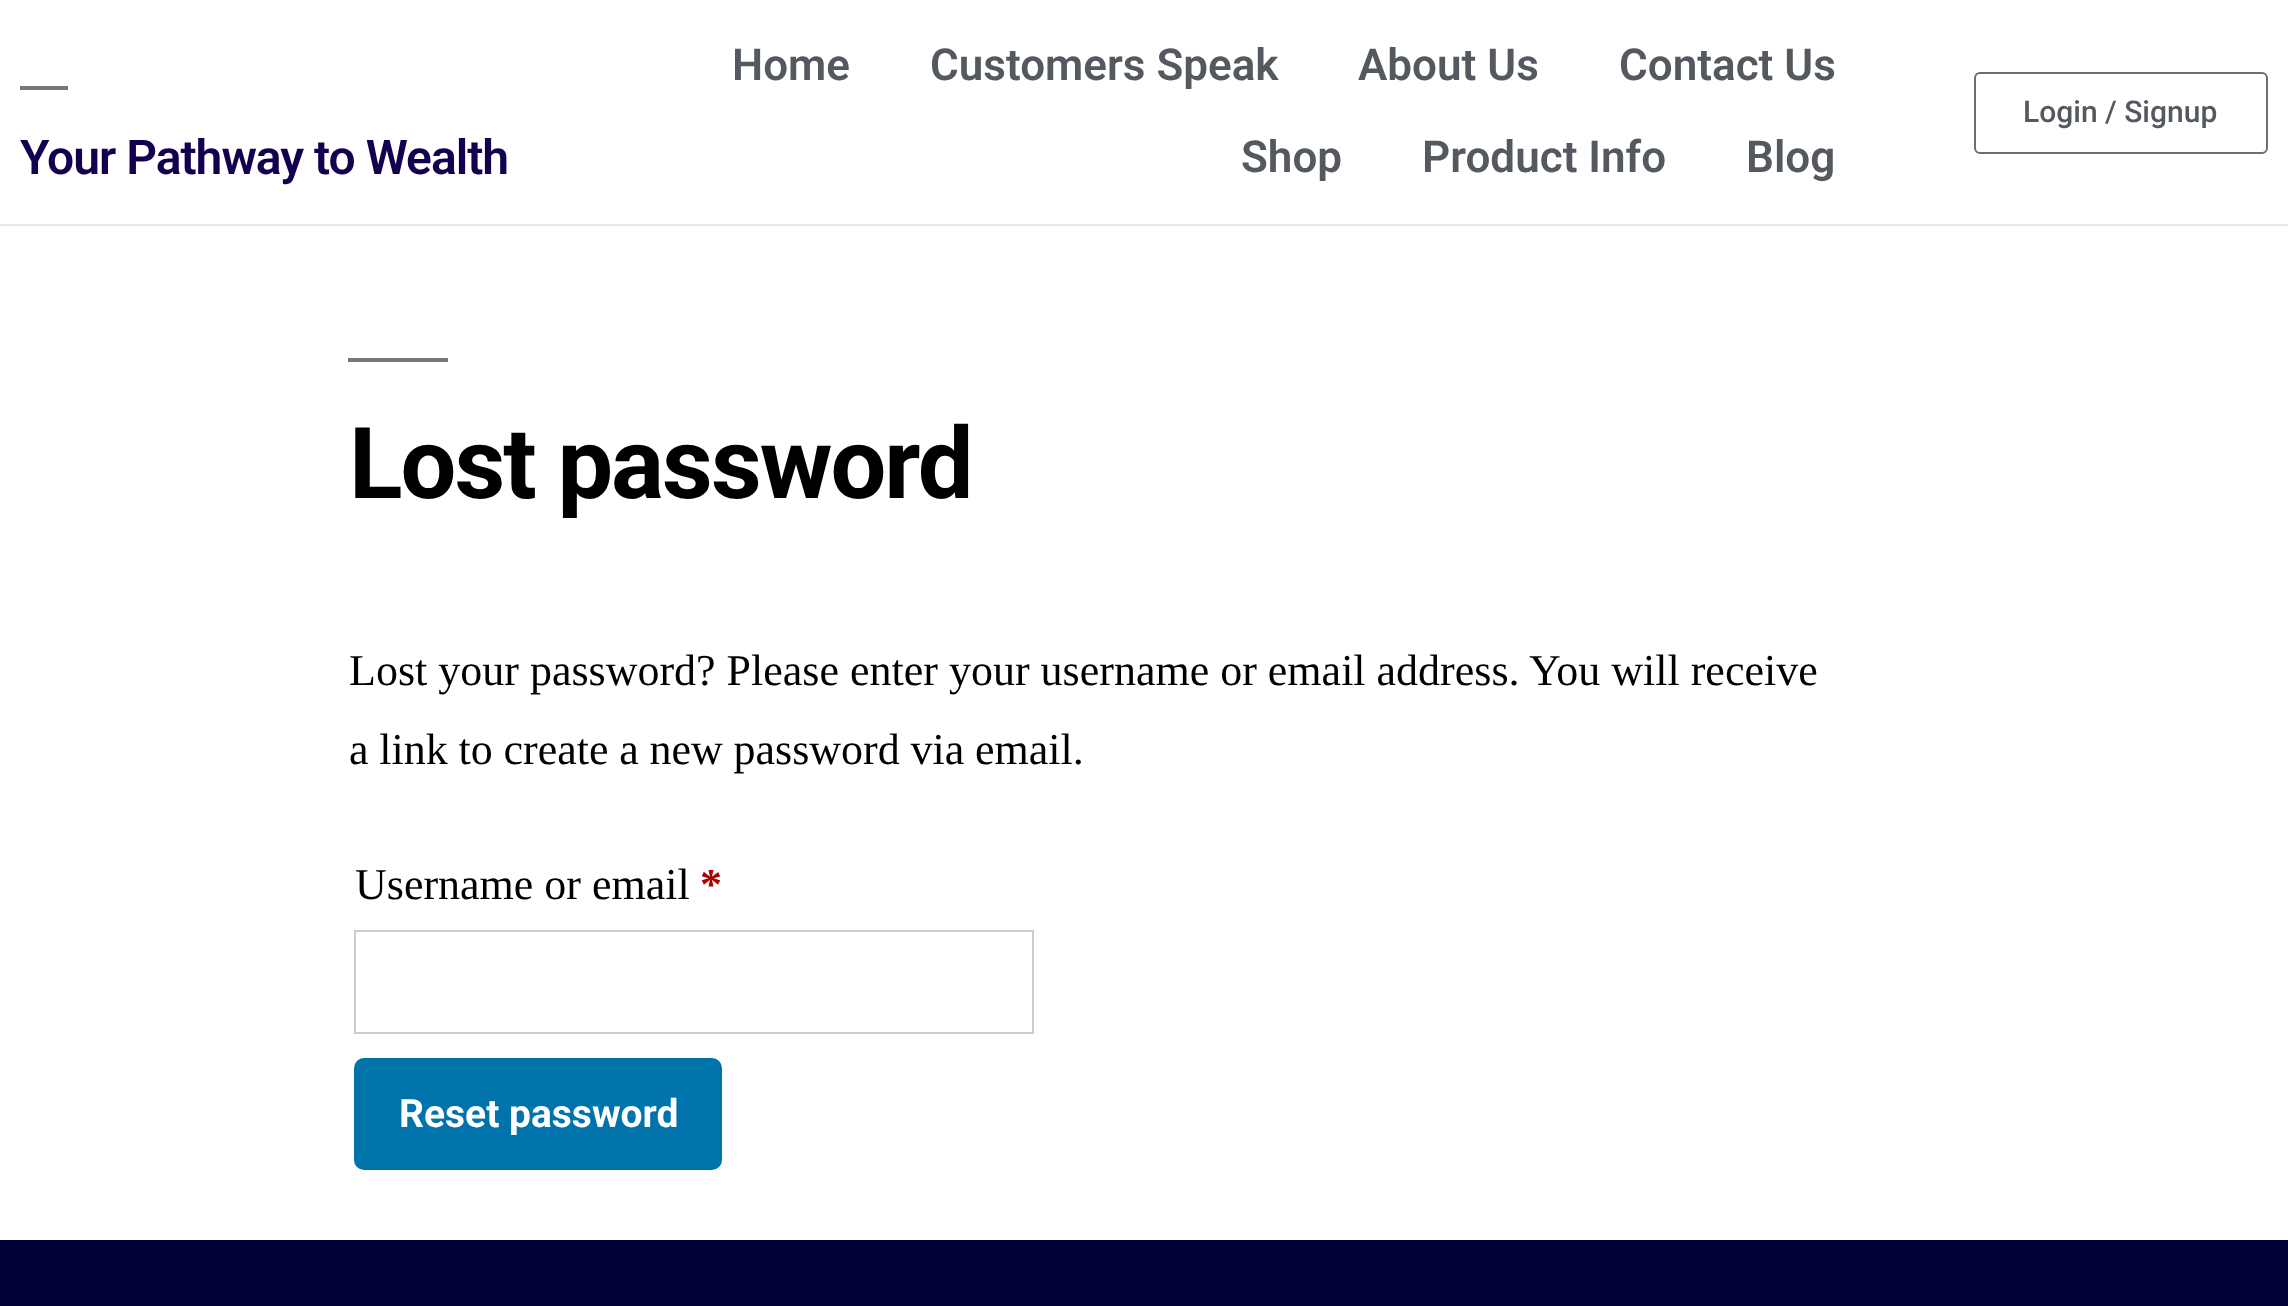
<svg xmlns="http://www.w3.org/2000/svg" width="2288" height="1306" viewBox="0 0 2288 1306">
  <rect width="100%" height="100%" fill="#fff"/>
  <path d="M0 224h2288v2H0z" fill="#e8e8e8"/>
  <rect x="1975" y="73" width="292" height="80" rx="5" fill="none" stroke="#736e6e" stroke-width="2"/>
  <path d="M20 86h48v4H20z" fill="#767676"/>
  <path d="M348 358h100v4H348z" fill="#767676"/>
  <path d="M355 931h678v102H355z" fill="none" stroke="#ccc" stroke-width="2"/>
  <rect x="354" y="1058" width="368" height="112" rx="10" fill="#0073aa"/>
  <path d="M0 1240h2288v66H0z" fill="#010139"/>
  <g font-family="Roboto" font-size="44" font-weight="600" fill="#54595f">
    <text x="732" y="80">Home</text>
    <text x="930" y="80">Customers Speak</text>
    <text x="1358" y="80">About Us</text>
    <text x="1619" y="80">Contact Us</text>
    <text x="1241" y="172">Shop</text>
    <text x="1422" y="172">Product Info</text>
    <text x="1746" y="172">Blog</text>
  </g>
  <text x="2023" y="122" font-family="Roboto" font-size="30" font-weight="500" fill="#54595f">Login / Signup</text>
  <text x="20" y="174" font-family="Roboto" font-size="48" font-weight="600" letter-spacing="-1" fill="#13004f">Your Pathway to Wealth</text>
  <text x="349" y="498" font-family="Roboto" font-size="99" font-weight="bold" letter-spacing="-2" fill="#000">Lost password</text>
  <g font-family="Liberation Serif" font-size="44" fill="#000">
    <text x="349" y="685">Lost your password? Please enter your username or email address. You will receive</text>
    <text x="349" y="764" word-spacing="-0.25">a link to create a new password via email.</text>
    <text x="355" y="899">Username or email</text>
  </g>
  <text x="700" y="899" font-family="Liberation Serif" font-size="44" font-weight="bold" fill="#a00">*</text>
  <text x="399" y="1127" font-family="Roboto" font-size="39" font-weight="bold" fill="#fff">Reset password</text>
</svg>
